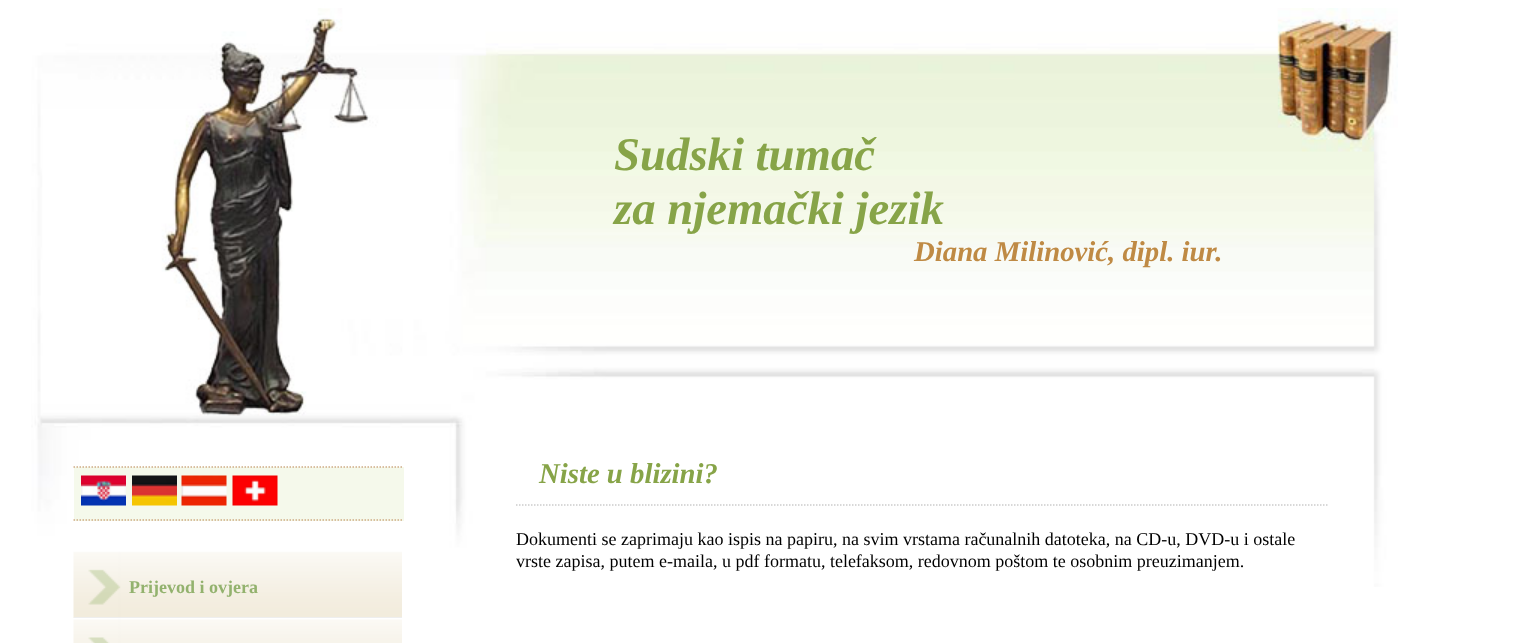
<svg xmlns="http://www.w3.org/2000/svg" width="1528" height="643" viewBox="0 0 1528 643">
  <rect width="100%" height="100%" fill="#fff"/>
  <image x="31" y="8" width="1367" height="579" href="img/1.png"/>
  <path d="M516 505H1327.5" fill="none" stroke="#ccc" stroke-width="1.5" stroke-dasharray="1.5 1.5"/>
  <path d="M74 467h330v54H74z" fill="#f5f9eb"/>
  <path d="M73.5 467H403.5" fill="none" stroke="#ceac86" stroke-width="1.5" stroke-dasharray="1.5 1.5"/>
  <path d="M73.5 520H403.5" fill="none" stroke="#ceac86" stroke-width="1.5" stroke-dasharray="1.5 1.5"/>
  <image x="81" y="475" width="45" height="31" href="img/2.png"/>
  <image x="132" y="475" width="45" height="31" href="img/3.png"/>
  <image x="181" y="475" width="46" height="31" href="img/4.png"/>
  <image x="232" y="475" width="46" height="31" href="img/5.png"/>
  <image x="73" y="551" width="329" height="67" href="img/6.png"/>
  <path d="M74 617h328v1H74z" fill="#eee"/>
  <image x="73" y="618" width="329" height="25" href="img/7.png"/>
  <g font-family="Liberation Serif" font-size="46.75" font-weight="bold" font-style="italic" fill="#87a448">
    <text x="614" y="170">Sudski tumač</text>
    <text x="614" y="224">za njemački jezik</text>
  </g>
  <text x="914" y="261" font-family="Liberation Serif" font-size="28.75" font-weight="bold" font-style="italic" fill="#bf8a44">Diana Milinović, dipl. iur.</text>
  <text x="539" y="483" font-family="Liberation Serif" font-size="28.75" font-weight="bold" font-style="italic" fill="#87a448">Niste u blizini?</text>
  <g font-family="Liberation Serif" font-size="18" fill="#000">
    <text x="516" y="545">Dokumenti se zaprimaju kao ispis na papiru, na svim vrstama računalnih datoteka, na CD-u, DVD-u i ostale</text>
    <text x="516" y="567">vrste zapisa, putem e-maila, u pdf formatu, telefaksom, redovnom poštom te osobnim preuzimanjem.</text>
  </g>
  <text x="129" y="593" font-family="Liberation Serif" font-size="18" font-weight="bold" fill="#93b26e">Prijevod i ovjera</text>
</svg>
